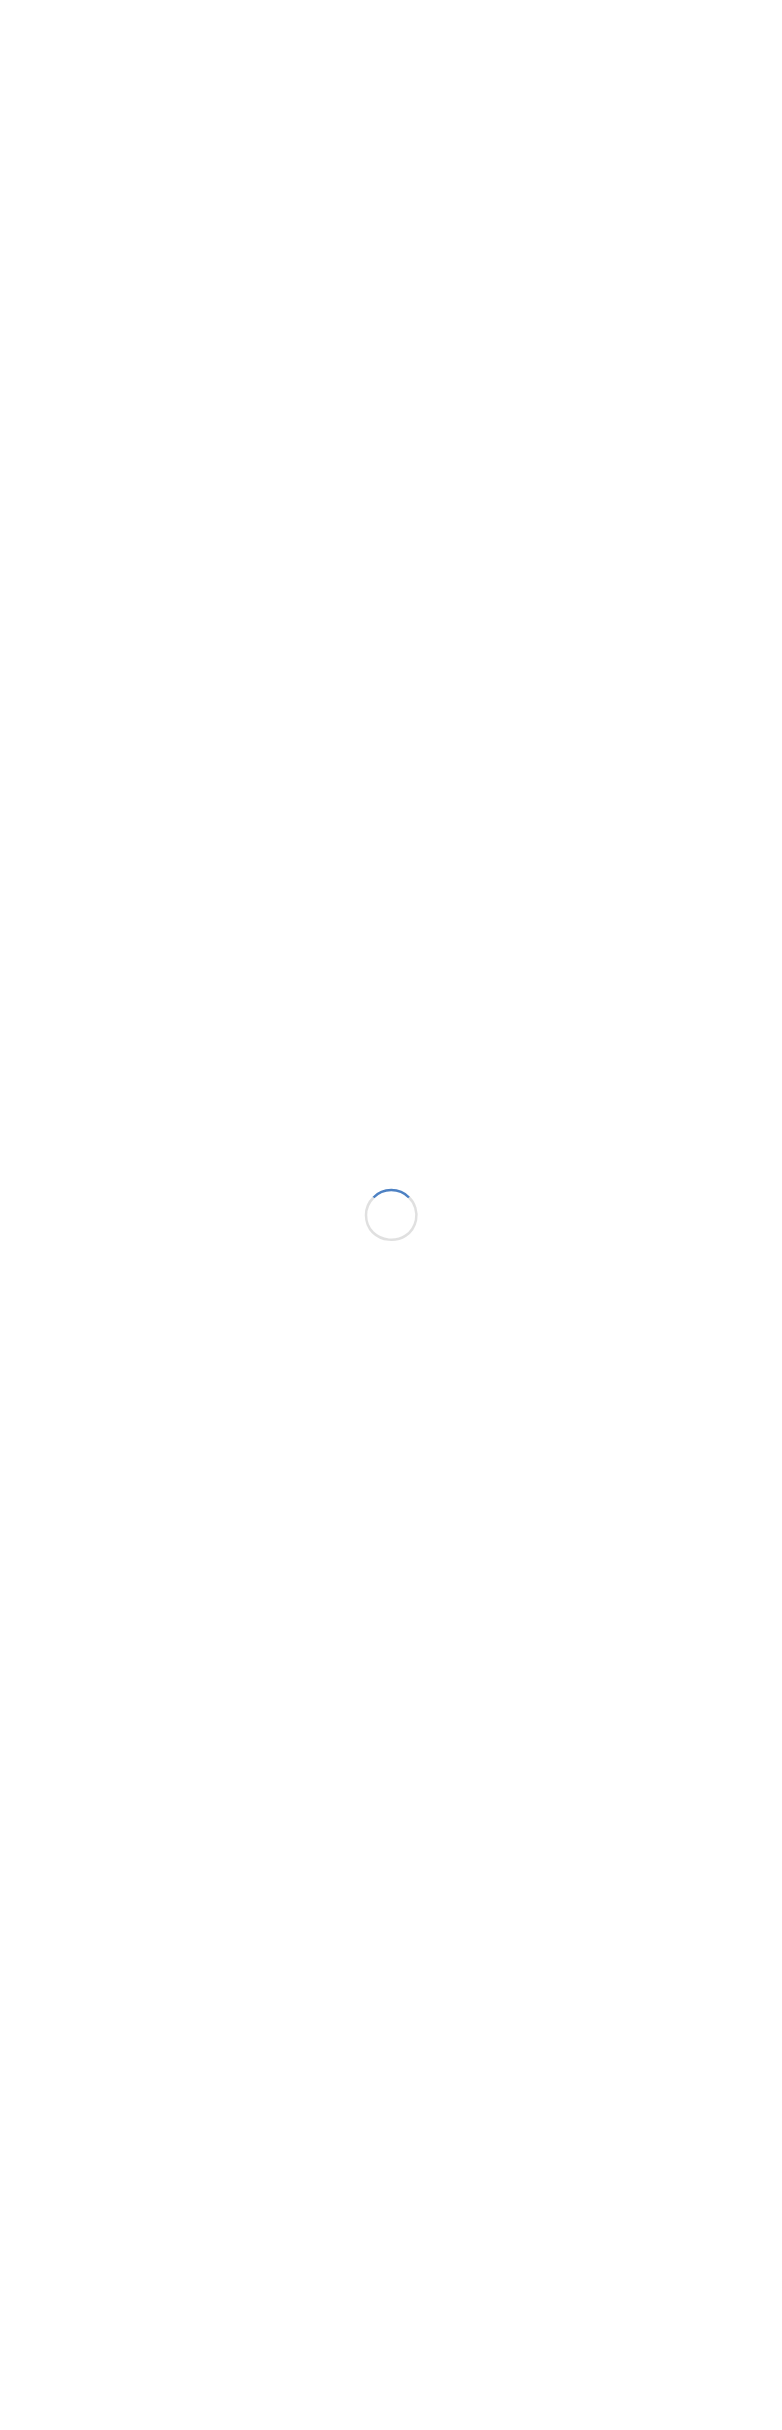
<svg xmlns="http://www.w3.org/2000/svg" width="782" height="2430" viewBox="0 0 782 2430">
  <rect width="100%" height="100%" fill="#fff"/>
  <path d="M373.5 1197.5C383 1187.5 399.5 1187.5 409 1197.5" fill="none" stroke="#4d81c3" stroke-width="2.5"/>
  <path d="M409 1197.5C415 1203 417.5 1212 416 1220C410 1249 366 1245 366 1215C366 1208.5 369 1202 373.5 1197.5" fill="none" stroke="#9999994d" stroke-width="2.5"/>
</svg>
